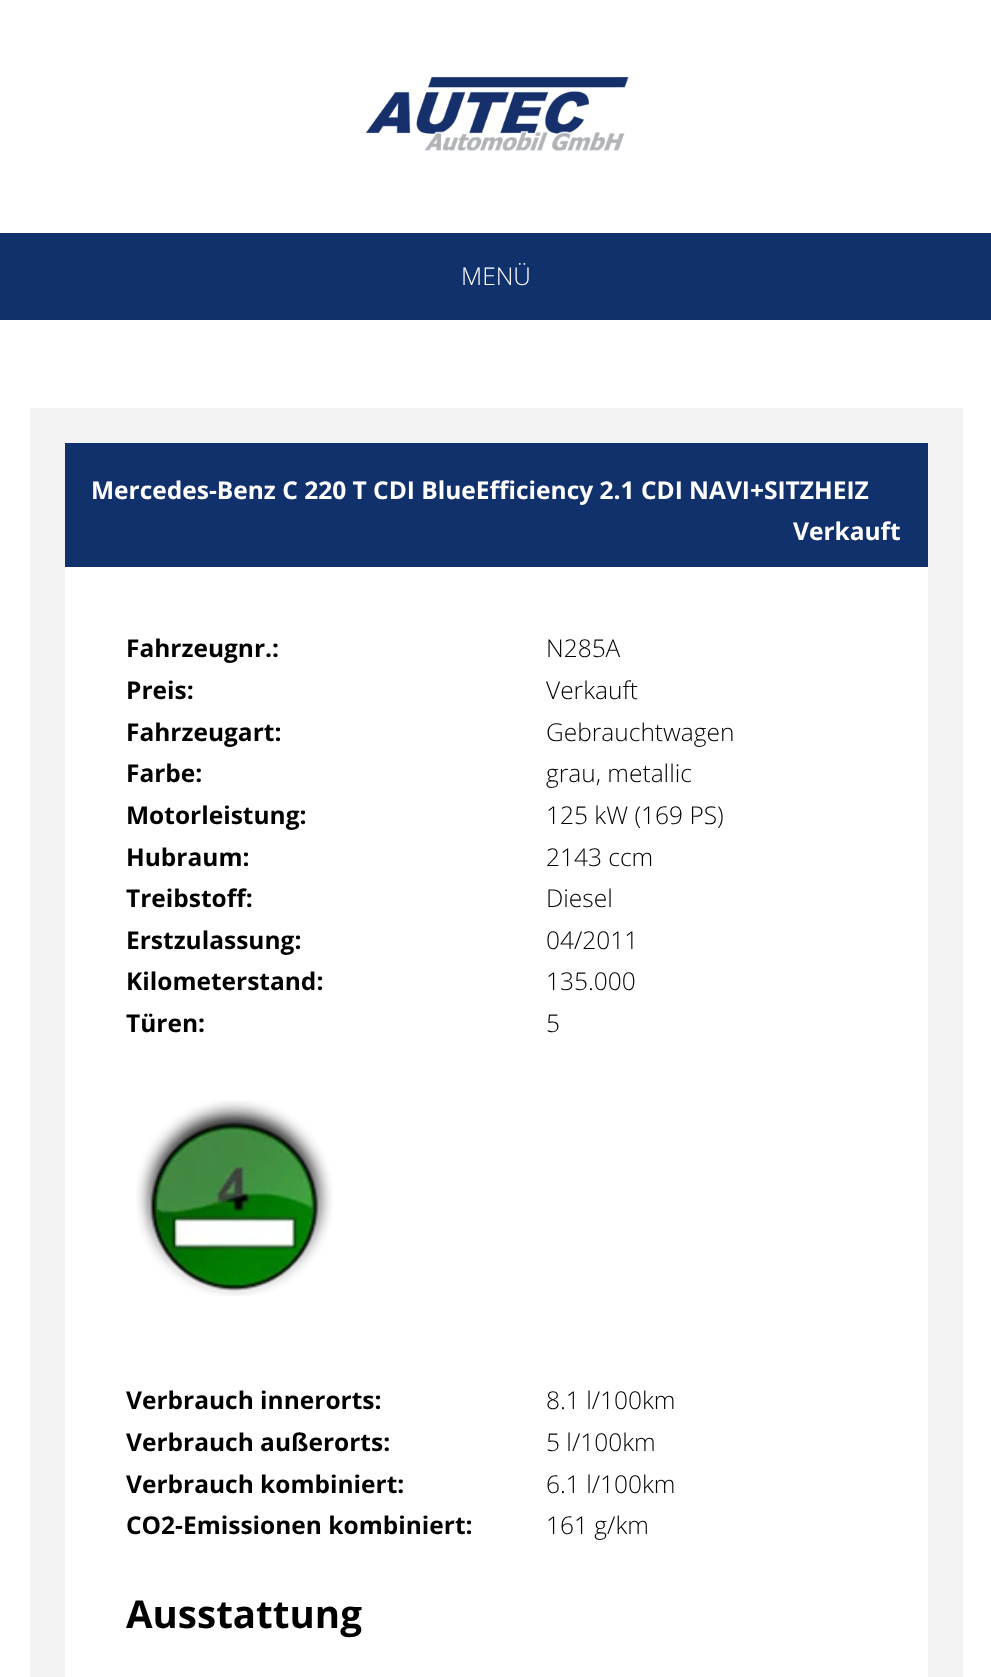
<svg xmlns="http://www.w3.org/2000/svg" width="991" height="1677" viewBox="0 0 991 1677">
  <rect width="100%" height="100%" fill="#fff"/>
  <image x="365" y="77" width="264" height="74" href="img/1.png"/>
  <path d="M0 233h991v87H0z" fill="#11316d"/>
  <path d="M30 408h933v1269H30z" fill="#f3f3f3"/>
  <path d="M65 443h863v124H65z" fill="#11316d"/>
  <path d="M65 567h863v1110H65z" fill="#fff"/>
  <image x="136" y="1100" width="197" height="196" href="img/2.png"/>
  <text x="461" y="285" font-family="Open Sans" font-size="24.5" font-weight="300" fill="#fff">MENÜ</text>
  <g font-family="Open Sans" font-size="24.5" font-weight="bold" fill="#fff">
    <text x="91" y="499">Mercedes-Benz C 220 T CDI BlueEfficiency 2.1 CDI NAVI+SITZHEIZ</text>
    <text x="793" y="540">Verkauft</text>
  </g>
  <text x="126" y="657" font-family="Open Sans" font-size="24.5" font-weight="bold" fill="#000">Fahrzeugnr.:</text>
  <text x="546" y="657" font-family="Open Sans" font-size="24.5" font-weight="300" fill="#000">N285A</text>
  <text x="126" y="699" font-family="Open Sans" font-size="24.5" font-weight="bold" fill="#000">Preis:</text>
  <text x="546" y="699" font-family="Open Sans" font-size="24.5" font-weight="300" fill="#000">Verkauft</text>
  <text x="126" y="741" font-family="Open Sans" font-size="24.5" font-weight="bold" fill="#000">Fahrzeugart:</text>
  <text x="546" y="741" font-family="Open Sans" font-size="24.5" font-weight="300" fill="#000">Gebrauchtwagen</text>
  <text x="126" y="782" font-family="Open Sans" font-size="24.5" font-weight="bold" fill="#000">Farbe:</text>
  <text x="546" y="782" font-family="Open Sans" font-size="24.5" font-weight="300" fill="#000">grau, metallic</text>
  <text x="126" y="824" font-family="Open Sans" font-size="24.5" font-weight="bold" fill="#000">Motorleistung:</text>
  <text x="546" y="824" font-family="Open Sans" font-size="24.5" font-weight="300" fill="#000">125 kW (169 PS)</text>
  <text x="126" y="866" font-family="Open Sans" font-size="24.5" font-weight="bold" fill="#000">Hubraum:</text>
  <text x="546" y="866" font-family="Open Sans" font-size="24.5" font-weight="300" fill="#000">2143 ccm</text>
  <text x="126" y="907" font-family="Open Sans" font-size="24.5" font-weight="bold" fill="#000">Treibstoff:</text>
  <text x="546" y="907" font-family="Open Sans" font-size="24.5" font-weight="300" fill="#000">Diesel</text>
  <text x="126" y="949" font-family="Open Sans" font-size="24.5" font-weight="bold" fill="#000">Erstzulassung:</text>
  <text x="546" y="949" font-family="Open Sans" font-size="24.5" font-weight="300" fill="#000">04/2011</text>
  <text x="126" y="990" font-family="Open Sans" font-size="24.5" font-weight="bold" fill="#000">Kilometerstand:</text>
  <text x="546" y="990" font-family="Open Sans" font-size="24.5" font-weight="300" fill="#000">135.000</text>
  <text x="126" y="1032" font-family="Open Sans" font-size="24.5" font-weight="bold" fill="#000">Türen:</text>
  <text x="546" y="1032" font-family="Open Sans" font-size="24.5" font-weight="300" fill="#000">5</text>
  <text x="126" y="1409" font-family="Open Sans" font-size="24.5" font-weight="bold" fill="#000">Verbrauch innerorts:</text>
  <text x="546" y="1409" font-family="Open Sans" font-size="24.5" font-weight="300" fill="#000">8.1 l/100km</text>
  <text x="126" y="1451" font-family="Open Sans" font-size="24.5" font-weight="bold" fill="#000">Verbrauch außerorts:</text>
  <text x="546" y="1451" font-family="Open Sans" font-size="24.5" font-weight="300" fill="#000">5 l/100km</text>
  <text x="126" y="1493" font-family="Open Sans" font-size="24.5" font-weight="bold" fill="#000">Verbrauch kombiniert:</text>
  <text x="546" y="1493" font-family="Open Sans" font-size="24.5" font-weight="300" fill="#000">6.1 l/100km</text>
  <text x="126" y="1534" font-family="Open Sans" font-size="24.5" font-weight="bold" fill="#000">CO2-Emissionen kombiniert:</text>
  <text x="546" y="1534" font-family="Open Sans" font-size="24.5" font-weight="300" fill="#000">161 g/km</text>
  <text x="126" y="1628" font-family="Open Sans" font-size="38.5" font-weight="bold" fill="#000">Ausstattung</text>
</svg>
